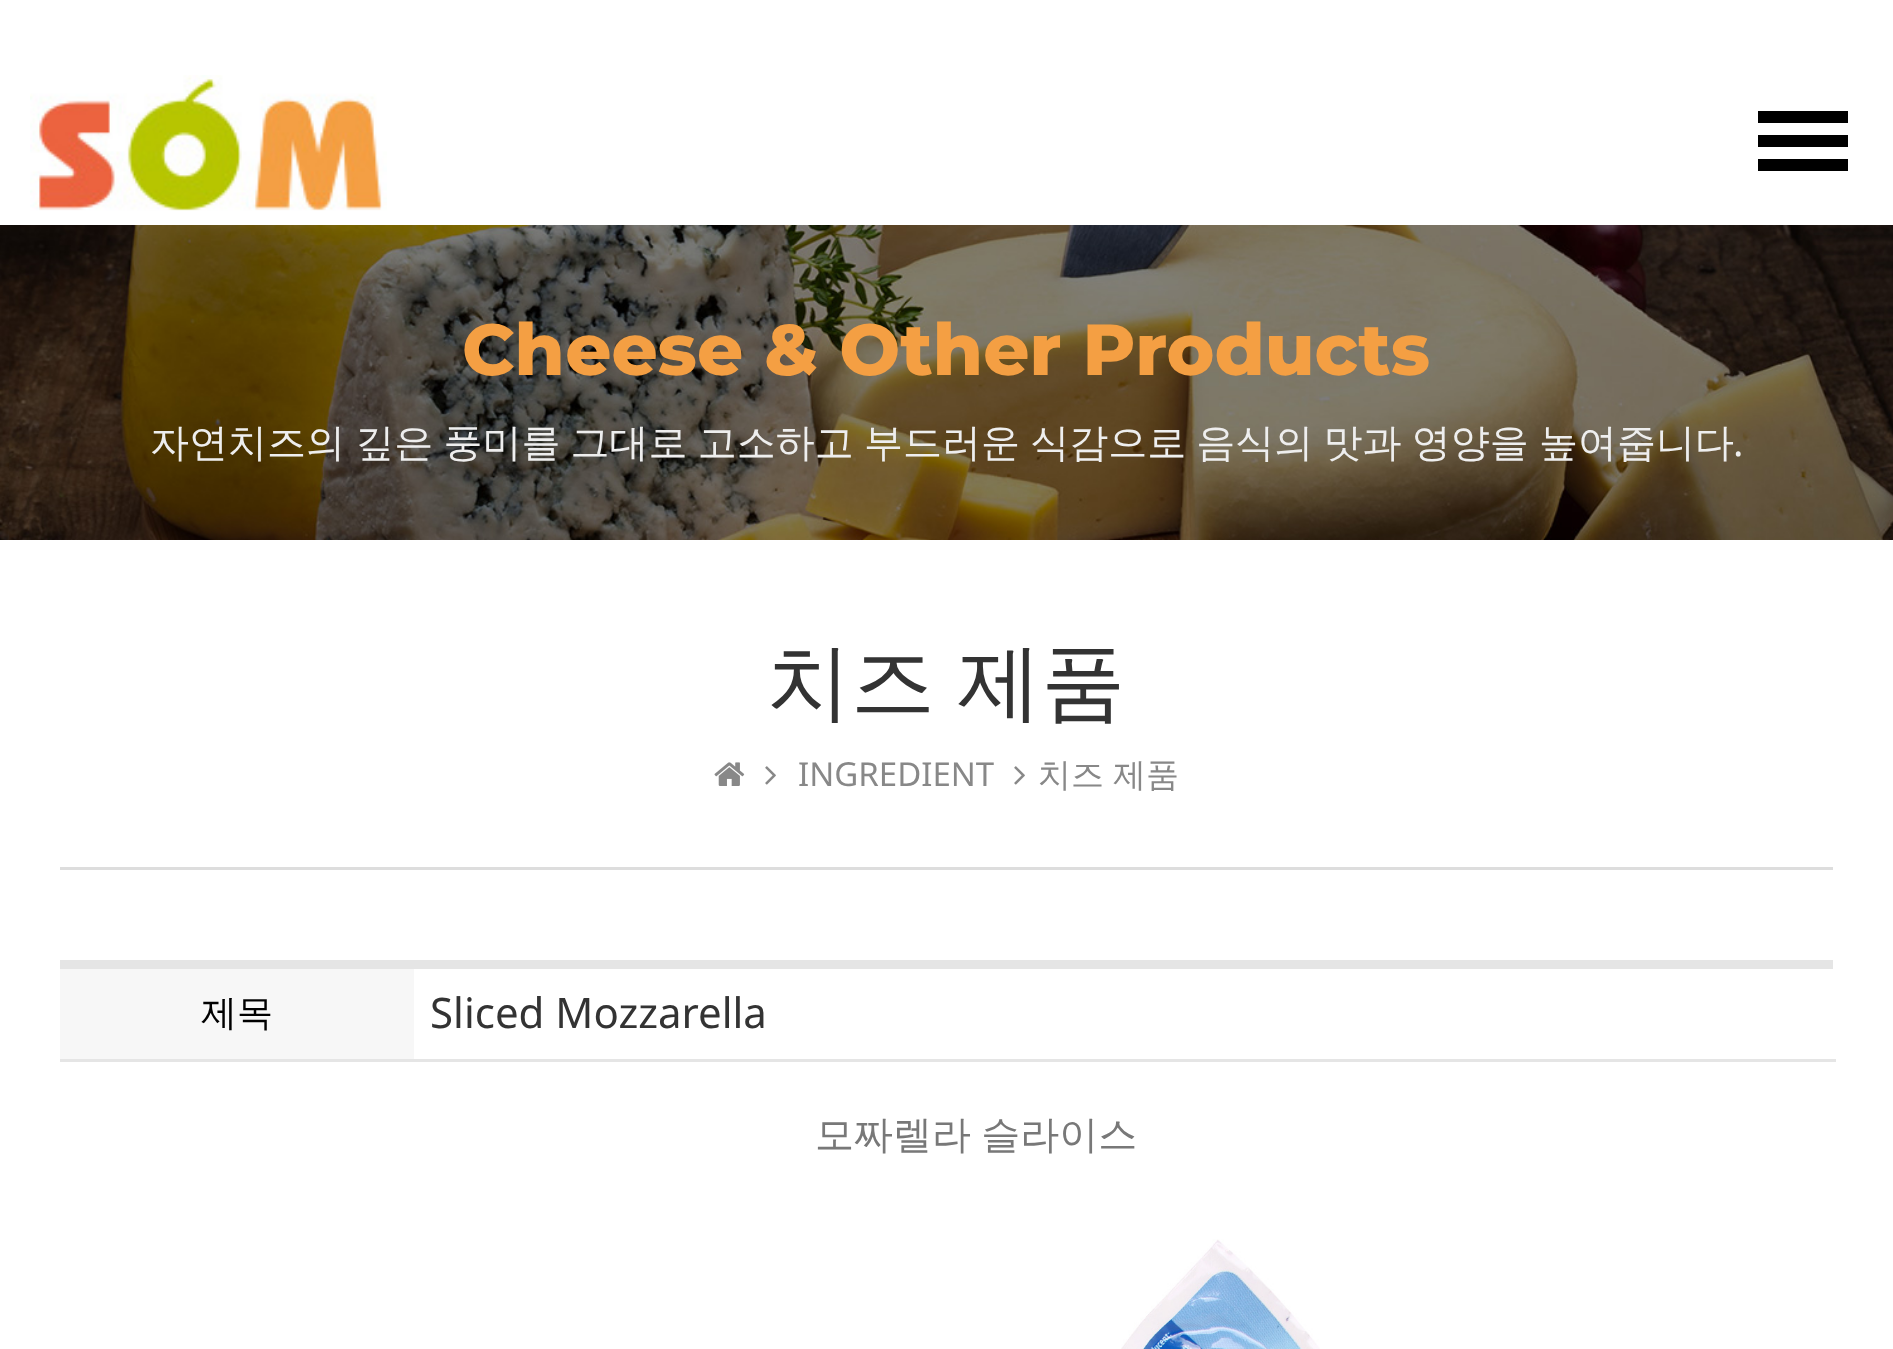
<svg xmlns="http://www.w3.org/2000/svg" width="1893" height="1349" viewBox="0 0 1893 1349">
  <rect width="100%" height="100%" fill="#fff"/>
  <image x="30" y="75" width="357" height="136" href="img/1.png"/>
  <path d="M1758 111h90v12H1758z" fill="#000"/>
  <path d="M1758 135h90v12H1758z" fill="#000"/>
  <path d="M1758 159h90v12H1758z" fill="#000"/>
  <image x="0" y="225" width="1893" height="315" href="img/2.png"/>
  <path d="M60 867h1773v3H60z" fill="#ddd"/>
  <image x="714" y="762" width="31" height="24" href="img/3.png"/>
  <image x="765" y="766" width="11" height="19" href="img/4.png"/>
  <image x="1014" y="766" width="11" height="19" href="img/4.png"/>
  <path d="M60 960h1773v9H60z" fill="#e5e5e5"/>
  <path d="M60 969h354v90H60z" fill="#f7f7f7"/>
  <path d="M60 1059h1776v3H60z" fill="#e5e5e5"/>
  <image x="1121" y="1239" width="199" height="110" href="img/5.png"/>
  <text x="462" y="375" font-family="Montserrat" font-size="72" font-weight="800" fill="#f49f43">Cheese &amp; Other Products</text>
  <text x="150" y="456" word-spacing="-1.5" font-family="WenQuanYi Zen Hei" font-size="39" font-weight="500" fill="#eee">자연치즈의 깊은 풍미를 그대로 고소하고 부드러운 식감으로 음식의 맛과 영양을 높여줍니다</text>
  <text x="1733" y="456" font-family="Noto Sans" font-size="39" fill="#eee">.</text>
  <text x="767" y="711" word-spacing="-3" font-family="WenQuanYi Zen Hei" font-size="84" font-weight="500" fill="#333">치즈 제품</text>
  <text x="798" y="786" font-family="Noto Sans" font-size="33" fill="#888">INGREDIENT</text>
  <text x="1038" y="786" word-spacing="-1" font-family="WenQuanYi Zen Hei" font-size="33" font-weight="500" fill="#888">치즈 제품</text>
  <text x="201" y="1025" font-family="WenQuanYi Zen Hei" font-size="36" font-weight="500" fill="#000">제목</text>
  <text x="430" y="1028" font-family="Noto Sans" font-size="42" fill="#333">Sliced Mozzarella</text>
  <text x="815" y="1148" word-spacing="-1.5" font-family="WenQuanYi Zen Hei" font-size="39" font-weight="500" fill="#787878">모짜렐라 슬라이스</text>
</svg>
